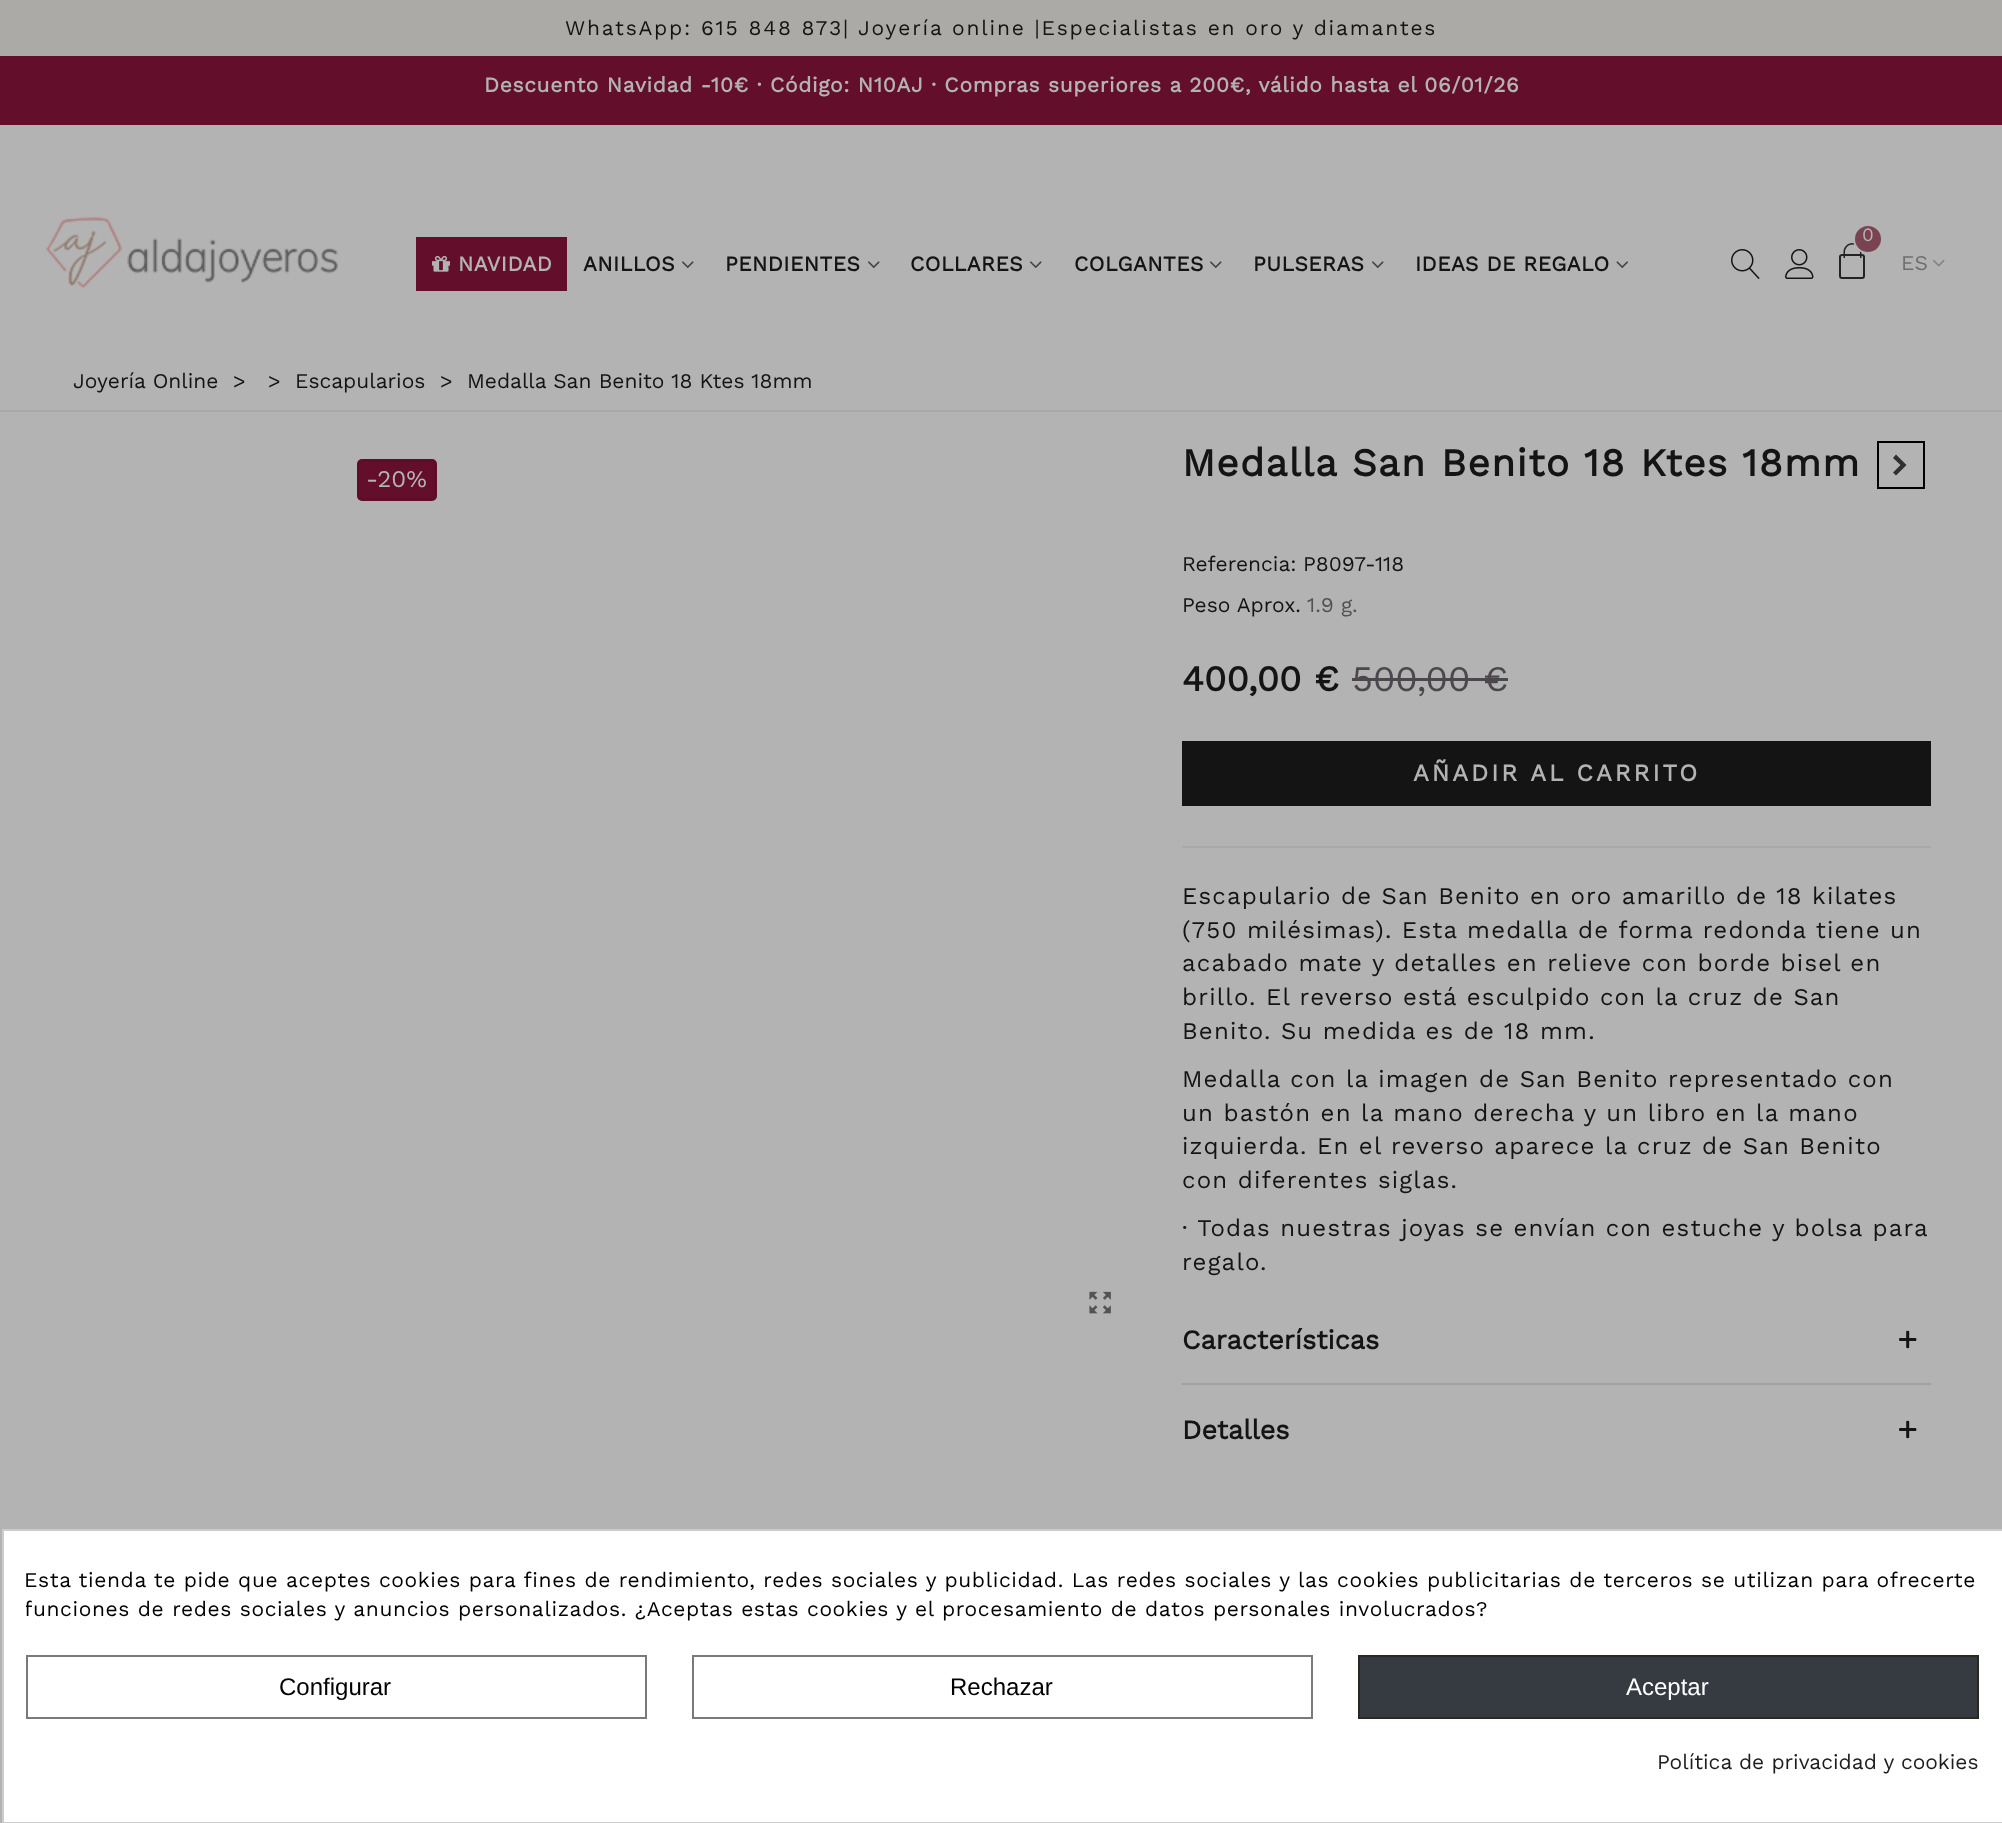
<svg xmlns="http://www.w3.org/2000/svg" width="2002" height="1823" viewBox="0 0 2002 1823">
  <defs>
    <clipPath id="clip1"><path d="M26 1566h1954v59H26z"/></clipPath>
  </defs>
  <rect width="100%" height="100%" fill="#b3b3b3"/>
  <path d="M0 0h2002v56H0z" fill="#acaaa7"/>
  <path d="M0 56h2002v69H0z" fill="#630e2b"/>
  <image x="46" y="217" width="292" height="72" href="img/1.png"/>
  <path d="M416 237h151v54H416z" fill="#630e2b"/>
  <image x="432" y="255" width="18" height="17" href="img/2.png"/>
  <image x="682" y="261" width="12" height="8" href="img/3.png"/>
  <image x="868" y="261" width="12" height="8" href="img/3.png"/>
  <image x="1030" y="261" width="12" height="8" href="img/3.png"/>
  <image x="1210" y="261" width="12" height="8" href="img/3.png"/>
  <image x="1372" y="261" width="12" height="8" href="img/3.png"/>
  <image x="1616" y="261" width="12" height="8" href="img/4.png"/>
  <rect x="1840" y="255" width="24" height="23" rx="2" fill="none" stroke="#242224" stroke-width="2"/>
  <path d="M1852.5 243C1857.5 243 1861.5 247 1861.5 252V258H1843.5V252C1843.5 247 1847.5 243 1852.5 243ZM1852.5 244.5C1856.5 244.5 1860 248 1860 252V258H1845V252C1845 248 1848.5 244.5 1852.5 244.5Z" fill="#242224" fill-rule="evenodd"/>
  <circle cx="1868" cy="239" r="14" fill="#794351" stroke="#b3b3b3" stroke-width="2"/>
  <image x="1731" y="249" width="29" height="30" href="img/5.png"/>
  <image x="1785" y="249" width="29" height="30" href="img/6.png"/>
  <image x="1933" y="259" width="12" height="8" href="img/7.png"/>
  <path d="M0 410h2002v2H0z" fill="#a9a9a9"/>
  <rect x="358.5" y="460.5" width="77" height="39" rx="3.5" fill="#630e2b" stroke="#5f0d28" stroke-width="3"/>
  <image x="1089" y="1291" width="22" height="23" href="img/8.png"/>
  <path d="M1878 442h46v46H1878z" fill="none" stroke="#000" stroke-width="2"/>
  <path d="M1893 472.5L1900.5 465L1893 458L1896 454.5L1906.5 465L1896 475.5Z" fill="#303030"/>
  <path d="M1352 678h156v3H1352z" fill="#4c474c"/>
  <path d="M1182 741h749v65H1182z" fill="#141415"/>
  <path d="M1182 846h749v2H1182z" fill="#a9a9a9"/>
  <path d="M1182 1383h749v2H1182z" fill="#a0a0a0"/>
  <image x="1899" y="1330" width="18" height="19" href="img/9.png"/>
  <image x="1899" y="1420" width="18" height="19" href="img/9.png"/>
  <path d="M3 1530h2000v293H3z" fill="#fff" stroke="#ccc" stroke-width="2"/>
  <path d="M27 1656h619v62H27z" fill="none" stroke="#7a7a7a" stroke-width="2"/>
  <path d="M693 1656h619v62H693z" fill="none" stroke="#7a7a7a" stroke-width="2"/>
  <path d="M1359 1656h619v62H1359z" fill="#363a41" stroke="#262a21" stroke-width="2"/>
  <g font-family="Work Sans" font-size="21" letter-spacing="1.8" fill="#141415">
    <text x="565" y="35">WhatsApp: 615 848 873|</text>
    <text x="858" y="35">Joyería online |Especialistas en oro y diamantes</text>
  </g>
  <text x="484" y="92" font-family="Work Sans" font-size="21" font-weight="bold" letter-spacing="0.63" fill="#b3b3b3">Descuento Navidad -10€ · Código: N10AJ · Compras superiores a 200€, válido hasta el 06/01/26</text>
  <text x="458" y="271" font-family="Work Sans" font-size="21" font-weight="bold" letter-spacing="0.4" fill="#b3b3b3">NAVIDAD</text>
  <g font-family="Work Sans" font-size="21" font-weight="bold" letter-spacing="0.4" fill="#141415">
    <text x="583" y="271">ANILLOS</text>
    <text x="725" y="271">PENDIENTES</text>
    <text x="910" y="271">COLLARES</text>
    <text x="1074" y="271">COLGANTES</text>
    <text x="1253" y="271">PULSERAS</text>
    <text x="1415" y="271">IDEAS DE REGALO</text>
  </g>
  <text x="1862" y="241" font-family="Work Sans" font-size="19" fill="#b3b3b3">0</text>
  <text x="1901" y="270" font-family="Work Sans" font-size="21" fill="#6f6f6f">ES</text>
  <g font-family="Work Sans" font-size="21" fill="#141415">
    <text x="73" y="388">Joyería Online</text>
    <text x="233" y="388">&gt;</text>
    <text x="268" y="388">&gt;</text>
    <text x="295" y="388">Escapularios</text>
    <text x="440" y="388">&gt;</text>
    <text x="467" y="388">Medalla San Benito 18 Ktes 18mm</text>
  </g>
  <text x="366" y="487" font-family="Work Sans" font-size="24" fill="#b3b3b3">-20%</text>
  <text x="1182" y="476" font-family="Work Sans" font-size="39" font-weight="bold" letter-spacing="1.2" fill="#141415">Medalla San Benito 18 Ktes 18mm</text>
  <g font-family="Work Sans" font-size="21" fill="#141415">
    <text x="1182" y="571">Referencia:</text>
    <text x="1303" y="571">P8097-118</text>
    <text x="1182" y="612">Peso Aprox.</text>
  </g>
  <text x="1307" y="612" font-family="Work Sans" font-size="21" fill="#535353">1.9 g.</text>
  <text x="1182" y="691" font-family="Work Sans" font-size="36" font-weight="bold" fill="#141415">400,00 €</text>
  <text x="1352" y="691" font-family="Work Sans" font-size="36" fill="#4c474c">500,00 €</text>
  <text x="1413" y="781" font-family="Work Sans" font-size="24" font-weight="bold" letter-spacing="2.9" fill="#b3b3b3">AÑADIR AL CARRITO</text>
  <g font-family="Work Sans" font-size="24" letter-spacing="1.2" fill="#141415">
    <text x="1182" y="904">Escapulario de San Benito en oro amarillo de 18 kilates</text>
    <text x="1182" y="938">(750 milésimas). Esta medalla de forma redonda tiene un</text>
    <text x="1182" y="971">acabado mate y detalles en relieve con borde bisel en</text>
    <text x="1182" y="1005">brillo. El reverso está esculpido con la cruz de San</text>
    <text x="1182" y="1039">Benito. Su medida es de 18 mm.</text>
    <text x="1182" y="1087">Medalla con la imagen de San Benito representado con</text>
    <text x="1182" y="1121">un bastón en la mano derecha y un libro en la mano</text>
    <text x="1182" y="1154">izquierda. En el reverso aparece la cruz de San Benito</text>
    <text x="1182" y="1188">con diferentes siglas.</text>
    <text x="1182" y="1236">· Todas nuestras joyas se envían con estuche y bolsa para</text>
    <text x="1182" y="1270">regalo.</text>
  </g>
  <g font-family="Work Sans" font-size="27" font-weight="bold" fill="#141415">
    <text x="1182" y="1349">Características</text>
    <text x="1182" y="1439">Detalles</text>
  </g>
  <text x="24" y="1587" font-family="Work Sans" font-size="21" letter-spacing="0.63" fill="#000">Esta tienda te pide que aceptes cookies para fines de rendimiento, redes sociales y publicidad. Las redes sociales y las cookies publicitarias de terceros se utilizan para ofrecerte</text>
  <g clip-path="url(#clip1)">
    <text x="24" y="1616" font-family="Work Sans" font-size="21" letter-spacing="0.63" fill="#000">funciones de redes sociales y anuncios personalizados. ¿Aceptas estas cookies y el procesamiento de datos personales involucrados?</text>
  </g>
  <g font-family="Liberation Sans" font-size="24" fill="#000">
    <text x="279" y="1695">Configurar</text>
    <text x="950" y="1695">Rechazar</text>
  </g>
  <text x="1626" y="1695" font-family="Liberation Sans" font-size="24" fill="#fff">Aceptar</text>
  <text x="1657" y="1769" font-family="Work Sans" font-size="21" fill="#1d1c1e">Política de privacidad y cookies</text>
</svg>
